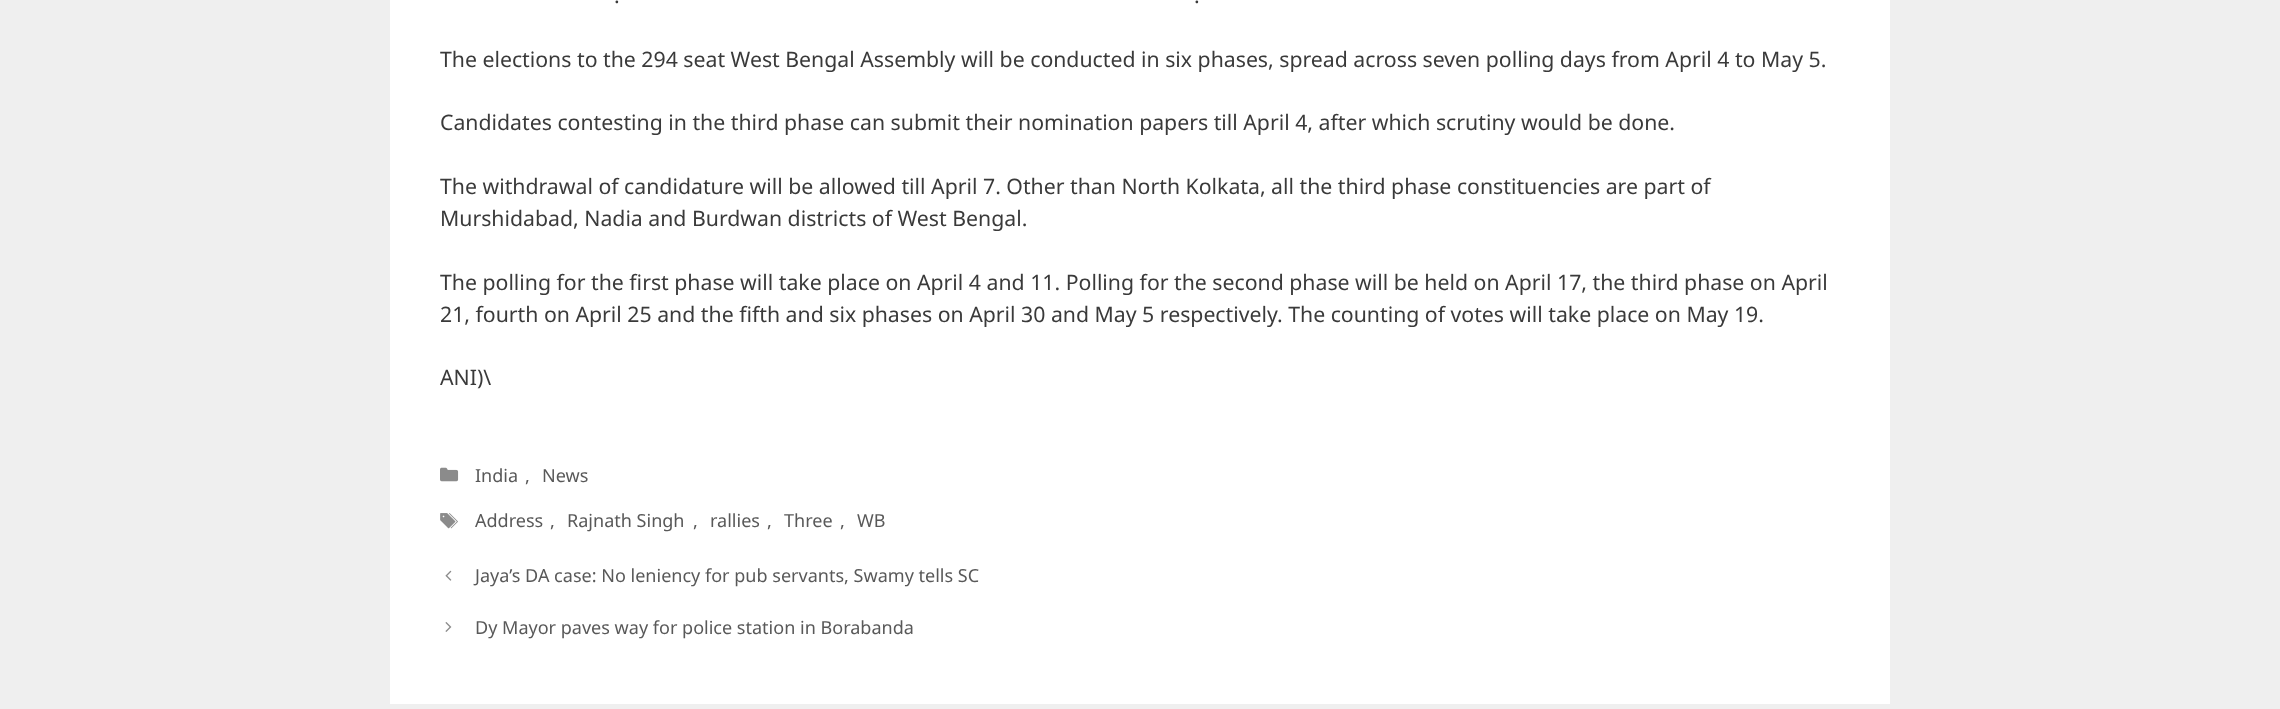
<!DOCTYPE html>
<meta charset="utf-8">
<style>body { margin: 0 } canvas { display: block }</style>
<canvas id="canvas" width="2280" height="709"></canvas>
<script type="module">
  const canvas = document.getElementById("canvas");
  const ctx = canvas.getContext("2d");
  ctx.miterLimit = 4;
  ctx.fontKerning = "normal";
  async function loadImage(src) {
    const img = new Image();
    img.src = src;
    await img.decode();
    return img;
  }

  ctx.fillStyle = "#efefef";
  ctx.fillRect(0, 0, 2280, 709);
  ctx.fillStyle = "#ffffff";
  ctx.fillRect(390, 0, 1500, 704);
  ctx.font = "21.25px Noto Sans";
  ctx.fillStyle = "#3a3a3a";
  ctx.fillText(".", 614, 3);
  ctx.fillText(".", 1194, 3);
  ctx.fillText("The elections to the 294 seat West Bengal Assembly will be conducted in six phases, spread across seven polling days from April 4 to May 5.", 440, 67);
  ctx.fillText("Candidates contesting in the third phase can submit their nomination papers till April 4, after which scrutiny would be done.", 440, 130);
  ctx.fillText("The withdrawal of candidature will be allowed till April 7. Other than North Kolkata, all the third phase constituencies are part of", 440, 194);
  ctx.fillText("Murshidabad, Nadia and Burdwan districts of West Bengal.", 440, 226);
  ctx.fillText("The polling for the first phase will take place on April 4 and 11. Polling for the second phase will be held on April 17, the third phase on April", 440, 290);
  ctx.fillText("21, fourth on April 25 and the fifth and six phases on April 30 and May 5 respectively. The counting of votes will take place on May 19.", 440, 322);
  ctx.fillText("ANI)\\", 440, 385);
  ctx.drawImage(await loadImage("img1.png"), 440, 467, 19, 15);
  ctx.font = "18.05px Noto Sans";
  ctx.fillStyle = "#595959";
  ctx.fillText("India", 475, 482);
  ctx.fillText(",", 525, 482);
  ctx.fillText("News", 542, 482);
  ctx.drawImage(await loadImage("img2.png"), 440, 513, 18, 16);
  ctx.fillText("Address", 475, 527);
  ctx.fillText(",", 550, 527);
  ctx.fillText("Rajnath Singh", 567, 527);
  ctx.fillText(",", 693, 527);
  ctx.fillText("rallies", 710, 527);
  ctx.fillText(",", 767, 527);
  ctx.fillText("Three", 784, 527);
  ctx.fillText(",", 840, 527);
  ctx.fillText("WB", 857, 527);
  ctx.drawImage(await loadImage("img3.png"), 445, 570, 7, 11);
  ctx.fillText("Jaya’s DA case: No leniency for pub servants, Swamy tells SC", 475, 582);
  ctx.drawImage(await loadImage("img4.png"), 445, 622, 7, 10);
  ctx.fillText("Dy Mayor paves way for police station in Borabanda", 475, 634);
</script>
